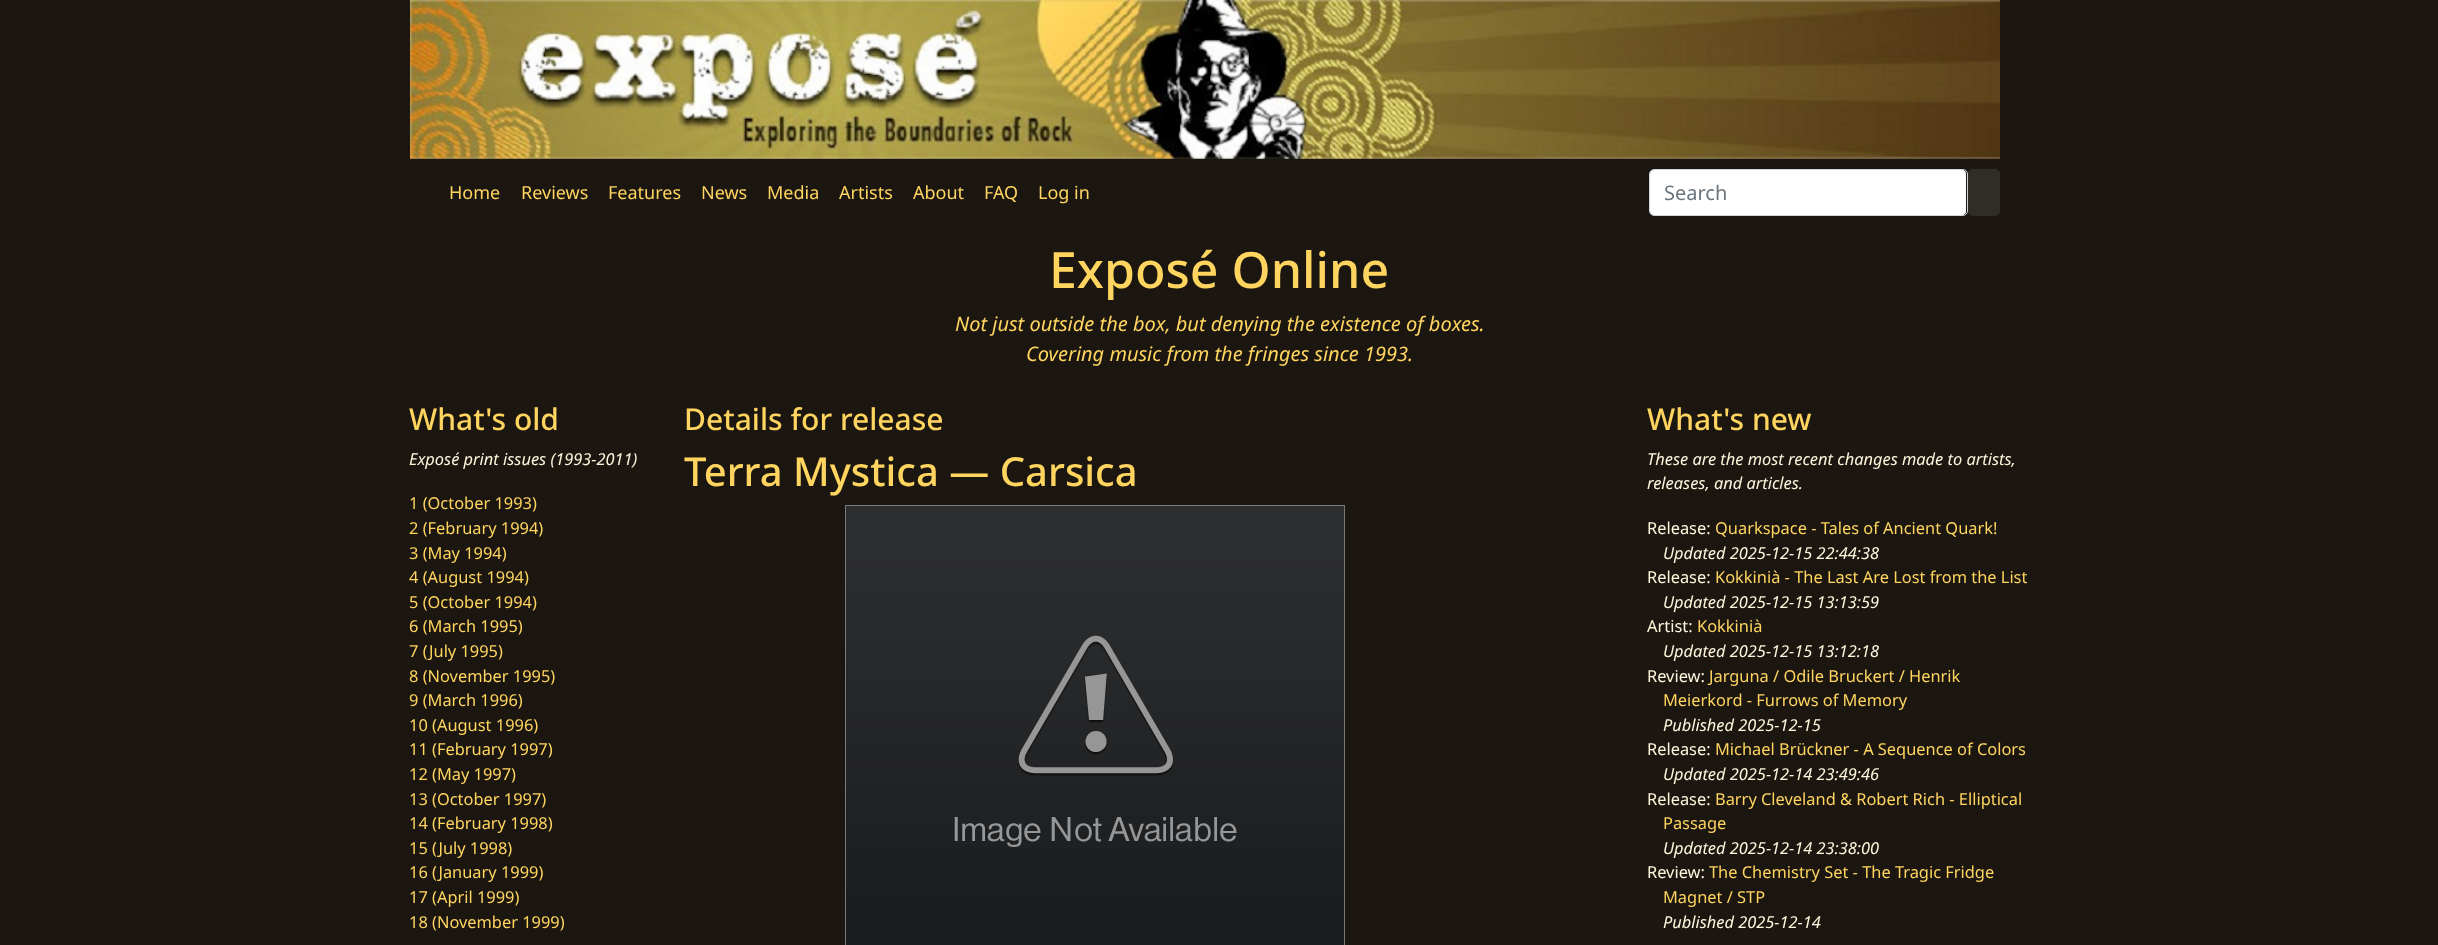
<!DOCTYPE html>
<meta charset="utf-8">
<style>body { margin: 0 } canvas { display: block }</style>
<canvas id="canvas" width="2438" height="945"></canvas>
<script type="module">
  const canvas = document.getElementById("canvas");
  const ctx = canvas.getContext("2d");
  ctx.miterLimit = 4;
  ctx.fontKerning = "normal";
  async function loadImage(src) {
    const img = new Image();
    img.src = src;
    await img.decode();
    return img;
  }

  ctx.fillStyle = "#1b1610";
  ctx.fillRect(0, 0, 2438, 945);
  ctx.drawImage(await loadImage("img1.png"), 410, 0, 1590, 159);
  ctx.font = "18px Noto Sans";
  ctx.fillStyle = "#ffd55f";
  ctx.fillText("Home", 449, 199);
  ctx.fillText("Reviews", 521, 199);
  ctx.fillText("Features", 608, 199);
  ctx.fillText("News", 701, 199);
  ctx.fillText("Media", 767, 199);
  ctx.fillText("Artists", 839, 199);
  ctx.fillText("About", 913, 199);
  ctx.fillText("FAQ", 984, 199);
  ctx.fillText("Log in", 1038, 199);
  ctx.fillStyle = "#ffffff";
  ctx.beginPath();
  ctx.roundRect(1650, 170, 316, 45, 4);
  ctx.fill();
  ctx.beginPath();
  ctx.roundRect(1649.5, 169.5, 318, 46, 4.5);
  ctx.strokeStyle = "#ced4da";
  ctx.stroke();
  ctx.font = "20px Noto Sans";
  ctx.fillStyle = "#6c757d";
  ctx.fillText("Search", 1664, 200);
  ctx.fillStyle = "#302c26";
  ctx.beginPath();
  ctx.roundRect(1968, 169, 32, 47, 5);
  ctx.fill();
  ctx.font = "500 50px Noto Sans";
  ctx.fillStyle = "#ffd55f";
  ctx.fillText("Exposé Online", 1049, 288);
  ctx.font = "italic 20px Noto Sans";
  ctx.fillText("Not just outside the box, but denying the existence of boxes.", 955, 331);
  ctx.fillText("Covering music from the fringes since 1993.", 1026, 361);
  ctx.font = "500 30px Noto Sans";
  ctx.fillText("What's old", 409, 430);
  ctx.font = "italic 16.4px Noto Sans";
  ctx.fillStyle = "#fff6dc";
  ctx.fillText("Exposé print issues (1993-2011)", 409, 465);
  ctx.font = "16.4px Noto Sans";
  ctx.fillStyle = "#ffd55f";
  ctx.fillText("1 (October 1993)", 409, 509);
  ctx.fillText("2 (February 1994)", 409, 534);
  ctx.fillText("3 (May 1994)", 409, 559);
  ctx.fillText("4 (August 1994)", 409, 583);
  ctx.fillText("5 (October 1994)", 409, 608);
  ctx.fillText("6 (March 1995)", 409, 632);
  ctx.fillText("7 (July 1995)", 409, 657);
  ctx.fillText("8 (November 1995)", 409, 682);
  ctx.fillText("9 (March 1996)", 409, 706);
  ctx.fillText("10 (August 1996)", 409, 731);
  ctx.fillText("11 (February 1997)", 409, 755);
  ctx.fillText("12 (May 1997)", 409, 780);
  ctx.fillText("13 (October 1997)", 409, 805);
  ctx.fillText("14 (February 1998)", 409, 829);
  ctx.fillText("15 (July 1998)", 409, 854);
  ctx.fillText("16 (January 1999)", 409, 878);
  ctx.fillText("17 (April 1999)", 409, 903);
  ctx.fillText("18 (November 1999)", 409, 928);
  ctx.font = "500 30px Noto Sans";
  ctx.fillText("Details for release", 684, 430);
  ctx.font = "500 40px Noto Sans";
  ctx.fillText("Terra Mystica — Carsica", 684, 486);
  ctx.drawImage(await loadImage("img2.png"), 845, 505, 500, 440);
  ctx.font = "500 30px Noto Sans";
  ctx.fillText("What's new", 1647, 430);
  ctx.font = "italic 16.4px Noto Sans";
  ctx.fillStyle = "#fff6dc";
  ctx.fillText("These are the most recent changes made to artists,", 1647, 465);
  ctx.fillText("releases, and articles.", 1647, 489);
  ctx.font = "16.4px Noto Sans";
  ctx.fillText("Release:", 1647, 534);
  ctx.fillStyle = "#ffd55f";
  ctx.fillText("Quarkspace - Tales of Ancient Quark!", 1715, 534);
  ctx.font = "italic 16.4px Noto Sans";
  ctx.fillStyle = "#fff6dc";
  ctx.fillText("Updated 2025-12-15 22:44:38", 1663, 559);
  ctx.font = "16.4px Noto Sans";
  ctx.fillText("Release:", 1647, 583);
  ctx.fillStyle = "#ffd55f";
  ctx.fillText("Kokkinià - The Last Are Lost from the List", 1715, 583);
  ctx.font = "italic 16.4px Noto Sans";
  ctx.fillStyle = "#fff6dc";
  ctx.fillText("Updated 2025-12-15 13:13:59", 1663, 608);
  ctx.font = "16.4px Noto Sans";
  ctx.fillText("Artist:", 1647, 632);
  ctx.fillStyle = "#ffd55f";
  ctx.fillText("Kokkinià", 1697, 632);
  ctx.font = "italic 16.4px Noto Sans";
  ctx.fillStyle = "#fff6dc";
  ctx.fillText("Updated 2025-12-15 13:12:18", 1663, 657);
  ctx.font = "16.4px Noto Sans";
  ctx.fillText("Review:", 1647, 682);
  ctx.fillStyle = "#ffd55f";
  ctx.fillText("Jarguna / Odile Bruckert / Henrik", 1709, 682);
  ctx.fillText("Meierkord - Furrows of Memory", 1663, 706);
  ctx.font = "italic 16.4px Noto Sans";
  ctx.fillStyle = "#fff6dc";
  ctx.fillText("Published 2025-12-15", 1663, 731);
  ctx.font = "16.4px Noto Sans";
  ctx.fillText("Release:", 1647, 755);
  ctx.fillStyle = "#ffd55f";
  ctx.fillText("Michael Brückner - A Sequence of Colors", 1715, 755);
  ctx.font = "italic 16.4px Noto Sans";
  ctx.fillStyle = "#fff6dc";
  ctx.fillText("Updated 2025-12-14 23:49:46", 1663, 780);
  ctx.font = "16.4px Noto Sans";
  ctx.fillText("Release:", 1647, 805);
  ctx.fillStyle = "#ffd55f";
  ctx.fillText("Barry Cleveland & Robert Rich - Elliptical", 1715, 805);
  ctx.fillText("Passage", 1663, 829);
  ctx.font = "italic 16.4px Noto Sans";
  ctx.fillStyle = "#fff6dc";
  ctx.fillText("Updated 2025-12-14 23:38:00", 1663, 854);
  ctx.font = "16.4px Noto Sans";
  ctx.fillText("Review:", 1647, 878);
  ctx.fillStyle = "#ffd55f";
  ctx.fillText("The Chemistry Set - The Tragic Fridge", 1709, 878);
  ctx.fillText("Magnet / STP", 1663, 903);
  ctx.font = "italic 16.4px Noto Sans";
  ctx.fillStyle = "#fff6dc";
  ctx.fillText("Published 2025-12-14", 1663, 928);
</script>
